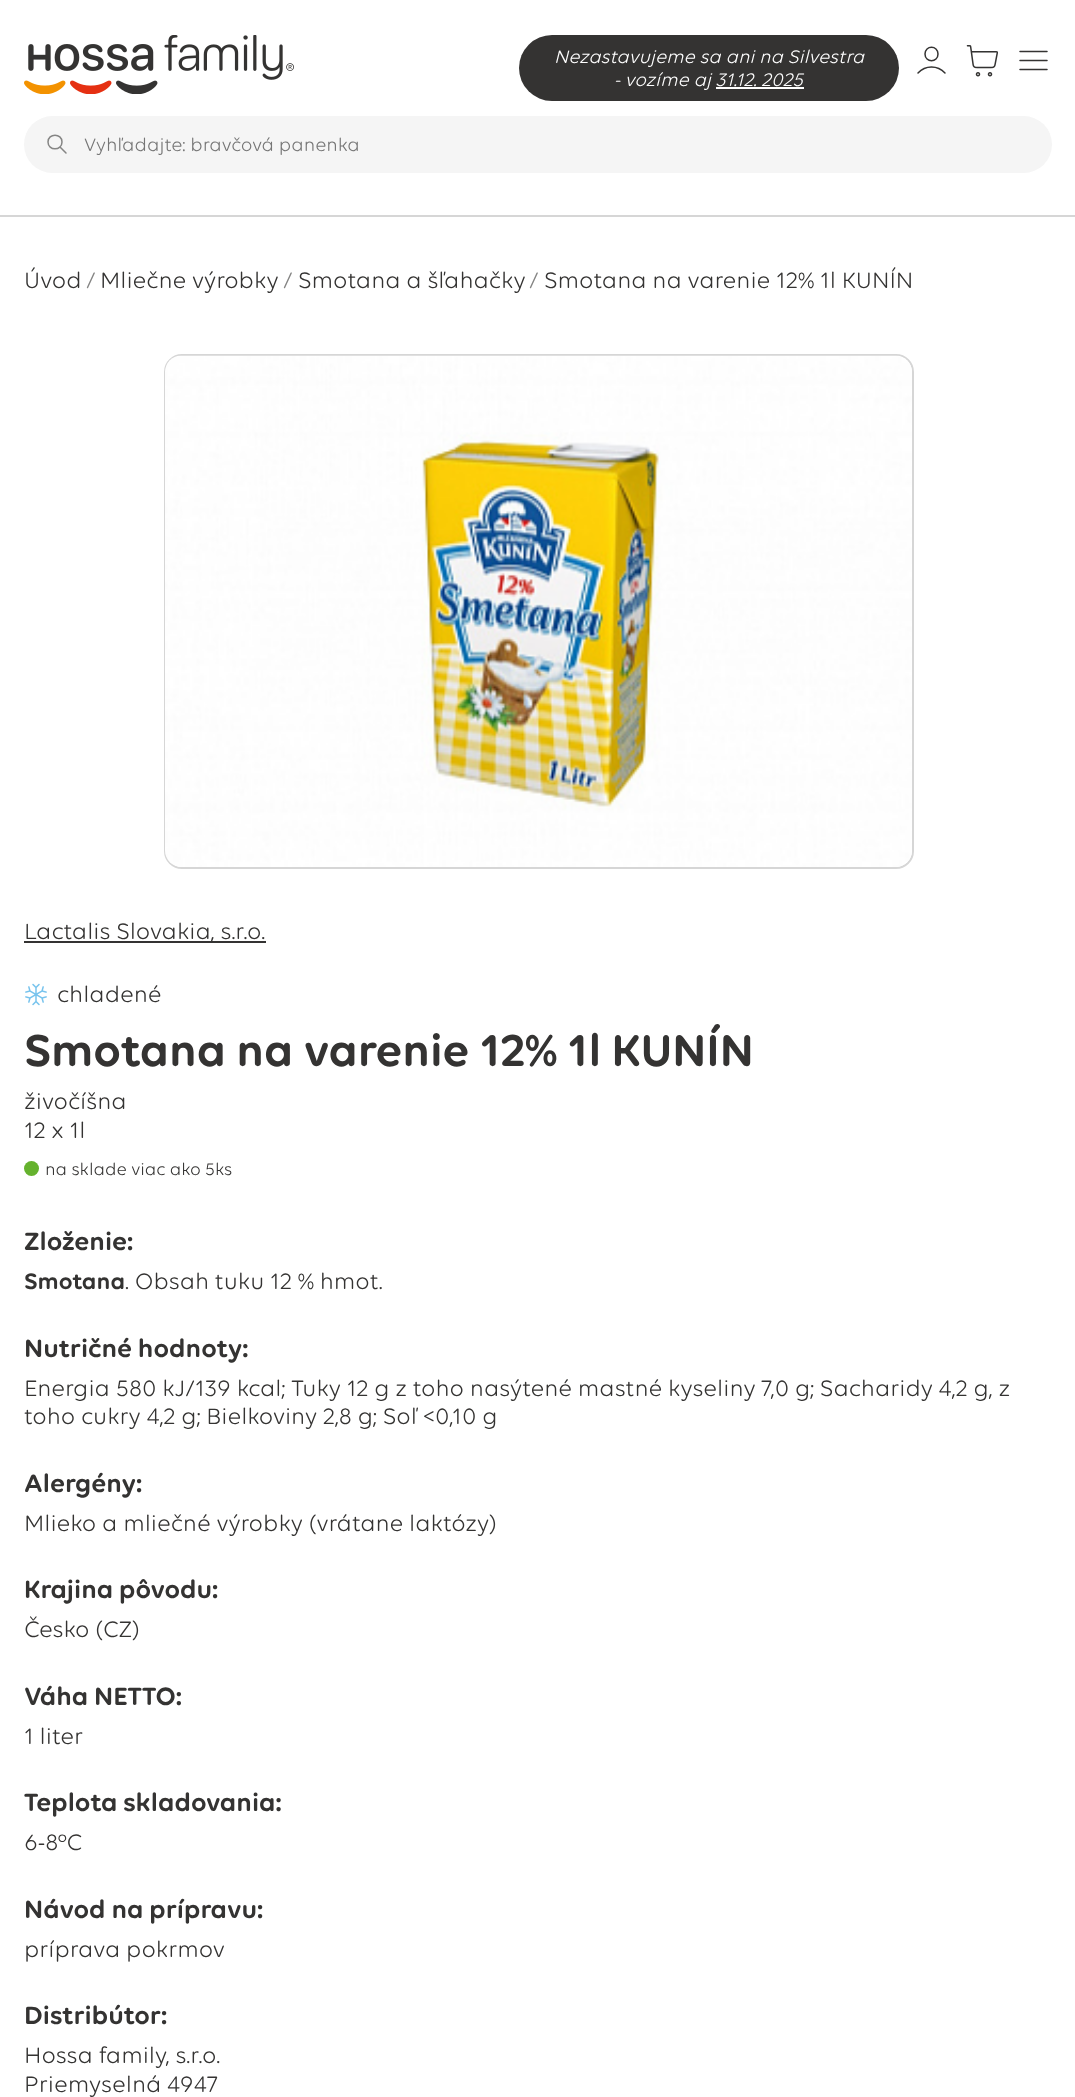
<!DOCTYPE html>
<meta charset="utf-8">
<style>body { margin: 0 } canvas { display: block }</style>
<canvas id="canvas" width="1075" height="2097"></canvas>
<script type="module">
  const canvas = document.getElementById("canvas");
  const ctx = canvas.getContext("2d");
  ctx.miterLimit = 4;
  ctx.fontKerning = "normal";
  async function loadImage(src) {
    const img = new Image();
    img.src = src;
    await img.decode();
    return img;
  }

  ctx.fillStyle = "#ffffff";
  ctx.fillRect(0, 0, 1075, 2097);
  ctx.fillStyle = "#d6d6d6";
  ctx.fillRect(0, 215, 1075, 2);
  ctx.drawImage(await loadImage("img1.png"), 24, 35, 270, 59);
  ctx.fillStyle = "#343332";
  ctx.beginPath();
  ctx.roundRect(519, 35, 380, 66, 33);
  ctx.fill();
  ctx.font = "italic 19.5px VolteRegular";
  ctx.fillStyle = "#ffffff";
  ctx.fillText("Nezastavujeme sa ani na Silvestra", 554, 63);
  ctx.fillText("- vozíme aj 31.12. 2025", 614, 86);
  ctx.fillRect(716, 87, 88, 2);
  ctx.beginPath();
  ctx.moveTo(918, 73);
  ctx.bezierCurveTo(925.5, 65, 937.5, 65, 945, 73);
  ctx.moveTo(938, 54);
  ctx.bezierCurveTo(938, 63, 925, 63, 925, 54);
  ctx.bezierCurveTo(925, 45, 938, 45, 938, 54);
  ctx.closePath();
  ctx.strokeStyle = "#343332";
  ctx.lineWidth = 1.5;
  ctx.lineCap = "round";
  ctx.lineJoin = "round";
  ctx.stroke();
  ctx.drawImage(await loadImage("img2.png"), 966, 45, 32, 32);
  ctx.beginPath();
  ctx.moveTo(1020, 60.5);
  ctx.lineTo(1047, 60.5);
  ctx.moveTo(1020, 51.5);
  ctx.lineTo(1047, 51.5);
  ctx.moveTo(1020, 69.5);
  ctx.lineTo(1047, 69.5);
  ctx.stroke();
  ctx.fillStyle = "#f5f5f5";
  ctx.beginPath();
  ctx.roundRect(24, 116, 1028, 57, 28.5);
  ctx.fill();
  ctx.beginPath();
  ctx.moveTo(66, 153);
  ctx.lineTo(60, 147);
  ctx.moveTo(62, 142);
  ctx.bezierCurveTo(62, 151, 48, 151, 48, 142);
  ctx.bezierCurveTo(48, 133, 62, 133, 62, 142);
  ctx.closePath();
  ctx.strokeStyle = "#858584";
  ctx.stroke();
  ctx.font = "19.5px VolteRegular";
  ctx.fillStyle = "#757575";
  ctx.fillText("Vyhľadajte: bravčová panenka", 84, 151);
  ctx.font = "24px VolteRegular";
  ctx.fillStyle = "#343332";
  ctx.fillText("Úvod", 24, 288);
  ctx.fillStyle = "#858584";
  ctx.fillText("/", 86, 288);
  ctx.fillStyle = "#343332";
  ctx.fillText("Mliečne výrobky", 100, 288);
  ctx.fillStyle = "#858584";
  ctx.fillText("/", 283, 288);
  ctx.fillStyle = "#343332";
  ctx.fillText("Smotana a šľahačky", 298, 288);
  ctx.fillStyle = "#858584";
  ctx.fillText("/", 529, 288);
  ctx.fillStyle = "#343332";
  ctx.fillText("Smotana na varenie 12% 1l KUNÍN", 544, 288);
  ctx.beginPath();
  ctx.roundRect(165, 355, 748, 513, 17);
  ctx.strokeStyle = "#d6d6d6";
  ctx.lineWidth = 2;
  ctx.lineJoin = "miter";
  ctx.stroke();
  ctx.drawImage(await loadImage("img3.png"), 165, 355, 747, 512);
  ctx.fillRect(24, 941, 242, 2);
  ctx.fillText("Lactalis Slovakia, s.r.o.", 24, 939);
  ctx.drawImage(await loadImage("img4.png"), 25, 983, 22, 23);
  ctx.fillText("chladené", 57, 1002);
  ctx.font = "600 48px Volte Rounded";
  ctx.fillText("Smotana na varenie 12% 1l KUNÍN", 24, 1066);
  ctx.font = "24px VolteRegular";
  ctx.fillText("živočíšna", 24, 1109);
  ctx.fillText("12 x 1l", 24, 1138);
  ctx.fillStyle = "#65b22e";
  ctx.beginPath();
  ctx.arc(31.5, 1168.5, 7.5, 0, Math.PI * 2);
  ctx.fill();
  ctx.font = "18px VolteRegular";
  ctx.fillStyle = "#343332";
  ctx.fillText("na sklade viac ako 5ks", 45, 1175);
  ctx.font = "600 27px Volte Rounded";
  ctx.fillText("Zloženie:", 24, 1250);
  ctx.font = "600 24px Volte Rounded";
  ctx.fillText("Smotana", 24, 1289);
  ctx.font = "24px VolteRegular";
  ctx.fillText(". Obsah tuku 12 % hmot.", 125, 1289);
  ctx.font = "600 27px Volte Rounded";
  ctx.fillText("Nutričné hodnoty:", 24, 1357);
  ctx.font = "24px VolteRegular";
  ctx.fillText("Energia 580 kJ/139 kcal; Tuky 12 g z toho nasýtené mastné kyseliny 7,0 g; Sacharidy 4,2 g, z", 24, 1396);
  ctx.fillText("toho cukry 4,2 g; Bielkoviny 2,8 g; Soľ <0,10 g", 24, 1424);
  ctx.font = "600 27px Volte Rounded";
  ctx.fillText("Alergény:", 24, 1492);
  ctx.font = "24px VolteRegular";
  ctx.fillText("Mlieko a mliečné výrobky (vrátane laktózy)", 24, 1531);
  ctx.font = "600 27px Volte Rounded";
  ctx.fillText("Krajina pôvodu:", 24, 1598);
  ctx.font = "24px VolteRegular";
  ctx.fillText("Česko (CZ)", 24, 1637);
  ctx.font = "600 27px Volte Rounded";
  ctx.fillText("Váha NETTO:", 24, 1705);
  ctx.font = "24px VolteRegular";
  ctx.fillText("1 liter", 24, 1744);
  ctx.font = "600 27px Volte Rounded";
  ctx.fillText("Teplota skladovania:", 24, 1811);
  ctx.font = "24px VolteRegular";
  ctx.fillText("6-8°C", 24, 1850);
  ctx.font = "600 27px Volte Rounded";
  ctx.fillText("Návod na prípravu:", 24, 1918);
  ctx.font = "24px VolteRegular";
  ctx.fillText("príprava pokrmov", 24, 1957);
  ctx.font = "600 27px Volte Rounded";
  ctx.fillText("Distribútor:", 24, 2024);
  ctx.font = "24px VolteRegular";
  ctx.fillText("Hossa family, s.r.o.", 24, 2063);
  ctx.fillText("Priemyselná 4947", 24, 2092);
</script>
